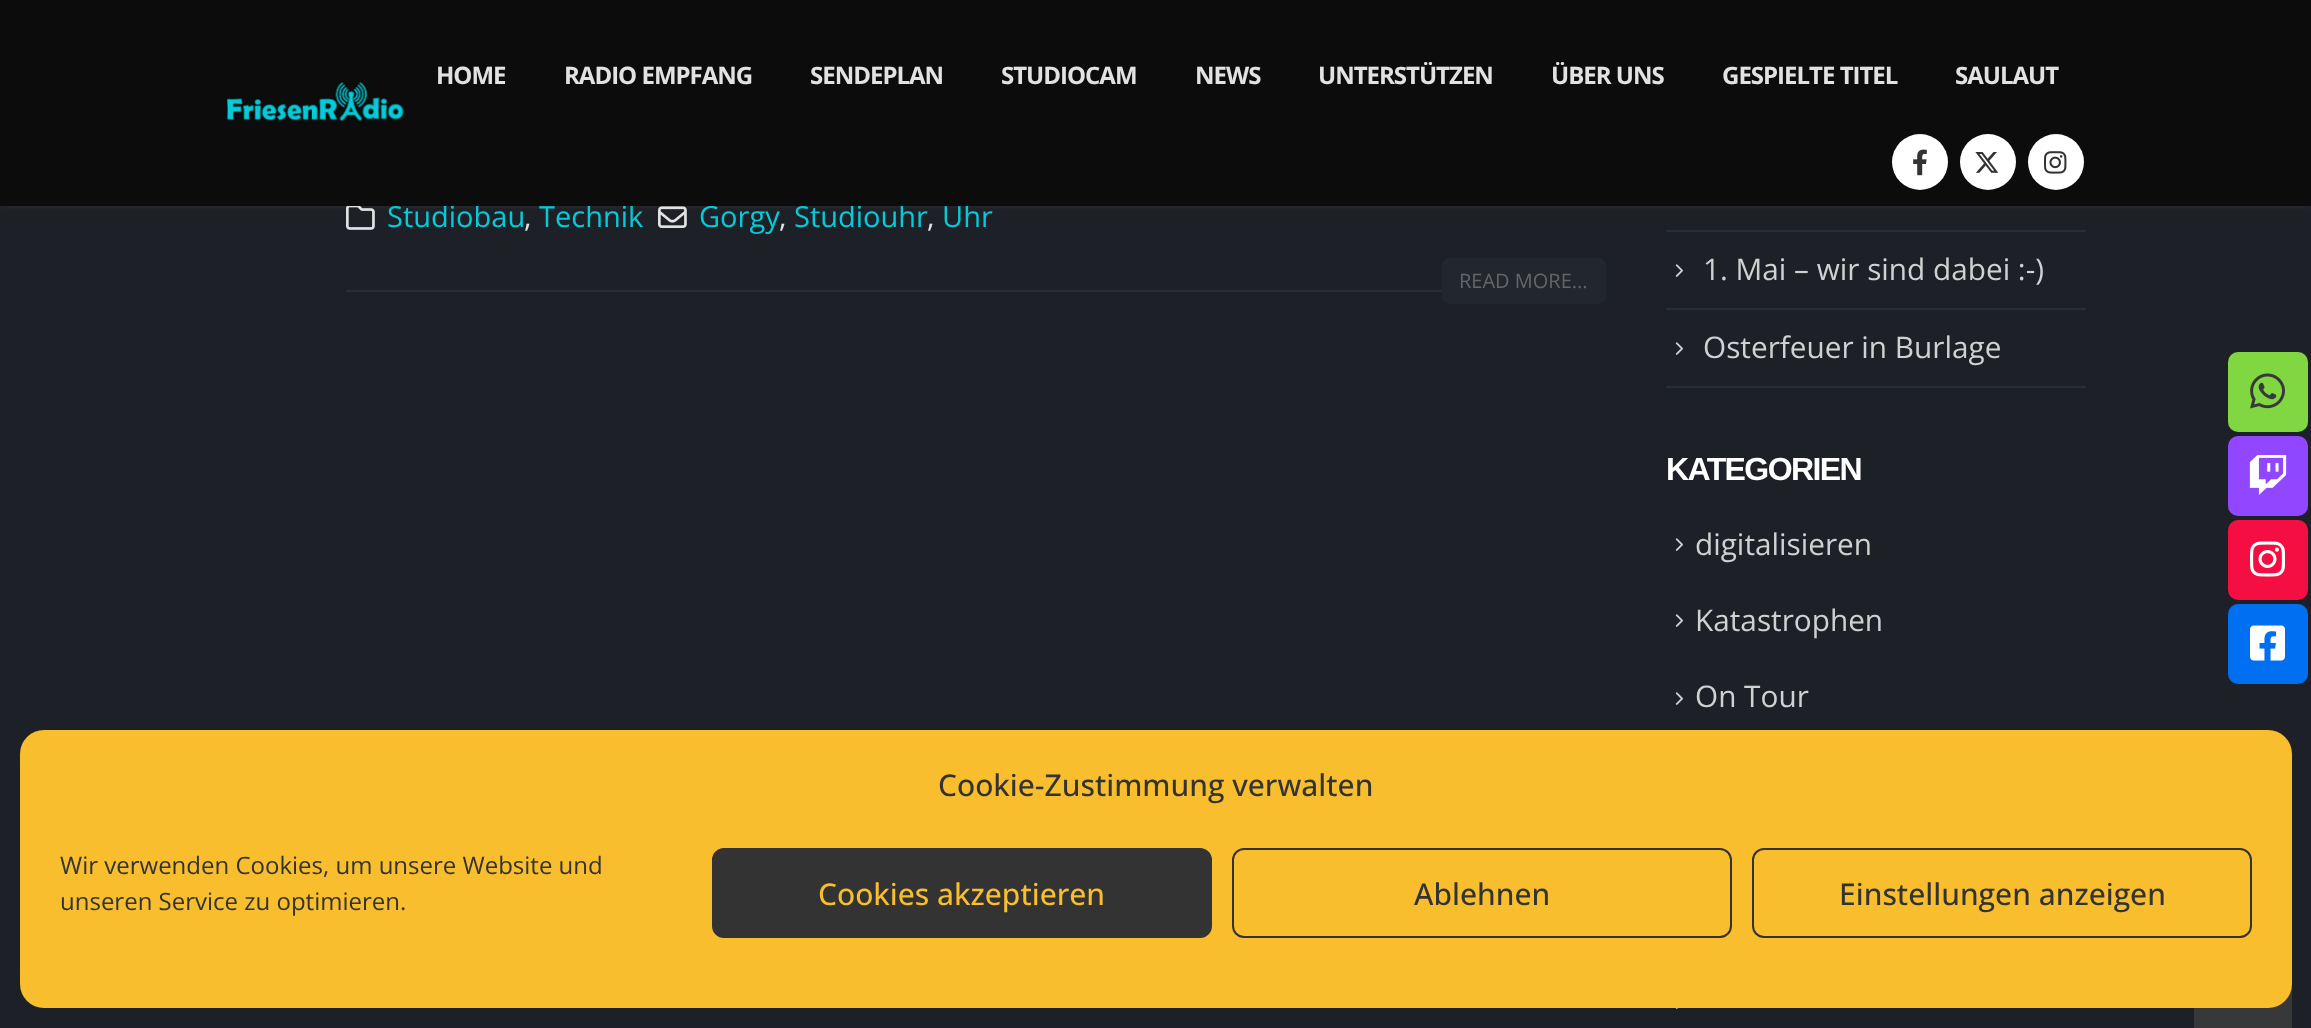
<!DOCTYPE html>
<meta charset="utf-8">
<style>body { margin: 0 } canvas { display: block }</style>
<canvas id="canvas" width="2311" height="1028"></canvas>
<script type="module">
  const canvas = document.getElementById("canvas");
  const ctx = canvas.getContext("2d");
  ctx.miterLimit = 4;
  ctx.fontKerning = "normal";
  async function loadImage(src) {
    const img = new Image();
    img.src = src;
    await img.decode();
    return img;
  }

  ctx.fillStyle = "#1d2127";
  ctx.fillRect(0, 0, 2311, 1028);
  ctx.drawImage(await loadImage("img5.png"), 346, 206, 29, 24);
  ctx.drawImage(await loadImage("img6.png"), 658, 206, 29, 22);
  ctx.fillStyle = "rgba(255, 255, 255, 0.06)";
  ctx.filter = "blur(3px)";
  ctx.beginPath();
  ctx.rect(0, 0, 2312, 206);
  ctx.fill();
  ctx.filter = "none";
  ctx.font = "29px Open Sans";
  ctx.fillStyle = "#05cbd8";
  ctx.fillText("Studiobau", 387, 227);
  ctx.fillText("Technik", 539, 227);
  ctx.fillText("Studiouhr", 794, 227);
  ctx.fillText("Uhr", 942, 227);
  ctx.fillStyle = "#0c0c0c";
  ctx.fillRect(0, 0, 2311, 206);
  ctx.letterSpacing = "-1px";
  ctx.font = "bold 24px Open Sans";
  ctx.fillStyle = "#e2e2e2";
  ctx.fillText("HOME", 436, 84);
  ctx.fillText("RADIO EMPFANG", 564, 84);
  ctx.fillText("SENDEPLAN", 810, 84);
  ctx.fillText("STUDIOCAM", 1001, 84);
  ctx.fillText("NEWS", 1195, 84);
  ctx.fillText("UNTERSTÜTZEN", 1318, 84);
  ctx.fillText("ÜBER UNS", 1551, 84);
  ctx.fillText("GESPIELTE TITEL", 1722, 84);
  ctx.fillText("SAULAUT", 1955, 84);
  ctx.fillStyle = "#ffffff";
  ctx.beginPath();
  ctx.arc(1920, 162, 28, 0, Math.PI * 2);
  ctx.fill();
  ctx.drawImage(await loadImage("img1.png"), 1913, 149, 14, 27);
  ctx.beginPath();
  ctx.arc(1988, 162, 28, 0, Math.PI * 2);
  ctx.fill();
  ctx.drawImage(await loadImage("img2.png"), 1975, 152, 24, 21);
  ctx.beginPath();
  ctx.arc(2056, 162, 28, 0, Math.PI * 2);
  ctx.fill();
  ctx.drawImage(await loadImage("img3.png"), 2044, 151, 23, 23);
  ctx.drawImage(await loadImage("img4.png"), 227, 81, 177, 41);
  ctx.fillStyle = "#2b2e34";
  ctx.fillRect(346, 290, 1096, 2);
  ctx.letterSpacing = "0px";
  ctx.font = "29px Open Sans";
  ctx.fillStyle = "#e2e2e2";
  ctx.fillText(",", 524, 227);
  ctx.fillStyle = "#05cbd8";
  ctx.fillText("Gorgy", 699, 227);
  ctx.fillStyle = "#e2e2e2";
  ctx.fillText(",", 779, 227);
  ctx.fillText(",", 927, 227);
  ctx.fillStyle = "#22262d";
  ctx.beginPath();
  ctx.roundRect(1442, 258, 164, 46, 8);
  ctx.fill();
  ctx.font = "20px Open Sans";
  ctx.fillStyle = "#666666";
  ctx.fillText("READ MORE...", 1459, 288);
  ctx.fillStyle = "#282e36";
  ctx.fillRect(1666, 386, 420, 2);
  ctx.fillRect(1666, 230, 420, 2);
  ctx.drawImage(await loadImage("img7.png"), 1675, 264, 8, 13);
  ctx.font = "29.75px Open Sans";
  ctx.fillStyle = "#d1d1d1";
  ctx.fillText("1. Mai – wir sind dabei :-)", 1703, 280);
  ctx.fillStyle = "#282e36";
  ctx.fillRect(1666, 308, 420, 2);
  ctx.drawImage(await loadImage("img7.png"), 1675, 342, 8, 13);
  ctx.fillStyle = "#d1d1d1";
  ctx.fillText("Osterfeuer in Burlage", 1703, 358);
  ctx.letterSpacing = "-1.6px";
  ctx.font = "bold 32px Liberation Sans";
  ctx.fillStyle = "#ffffff";
  ctx.fillText("KATEGORIEN", 1666, 480);
  ctx.drawImage(await loadImage("img7.png"), 1675, 538, 8, 13);
  ctx.letterSpacing = "0px";
  ctx.font = "29.75px Open Sans";
  ctx.fillStyle = "#d1d1d1";
  ctx.fillText("digitalisieren", 1695, 555);
  ctx.drawImage(await loadImage("img7.png"), 1675, 614, 8, 13);
  ctx.fillText("Katastrophen", 1695, 631);
  ctx.drawImage(await loadImage("img7.png"), 1675, 692, 8, 13);
  ctx.fillText("On Tour", 1695, 707);
  ctx.drawImage(await loadImage("img8.png"), 1675, 1008, 3, 1);
  ctx.fillStyle = "#81d742";
  ctx.beginPath();
  ctx.roundRect(2228, 352, 80, 80, 10);
  ctx.fill();
  ctx.drawImage(await loadImage("img9.png"), 2250, 373, 35, 36);
  ctx.fillStyle = "#9146ff";
  ctx.beginPath();
  ctx.roundRect(2228, 436, 80, 80, 10);
  ctx.fill();
  ctx.drawImage(await loadImage("img10.png"), 2249, 455, 38, 40);
  ctx.fillStyle = "#f50e42";
  ctx.beginPath();
  ctx.roundRect(2228, 520, 80, 80, 10);
  ctx.fill();
  ctx.drawImage(await loadImage("img11.png"), 2250, 541, 35, 36);
  ctx.fillStyle = "#006ff1";
  ctx.beginPath();
  ctx.roundRect(2228, 604, 80, 80, 10);
  ctx.fill();
  ctx.drawImage(await loadImage("img12.png"), 2250, 625, 35, 36);
  ctx.fillStyle = "#37383a";
  ctx.fillRect(2194, 984, 98, 44);
  ctx.fillStyle = "#f8be2e";
  ctx.beginPath();
  ctx.roundRect(20, 730, 2272, 278, 24);
  ctx.fill();
  ctx.font = "500 30px Open Sans";
  ctx.fillStyle = "#333333";
  ctx.fillText("Cookie-Zustimmung verwalten", 938, 796);
  ctx.font = "24px Open Sans";
  ctx.fillText("Wir verwenden Cookies, um unsere Website und", 60, 874);
  ctx.fillText("unseren Service zu optimieren.", 60, 910);
  ctx.beginPath();
  ctx.roundRect(713, 849, 498, 88, 11);
  ctx.fill();
  ctx.strokeStyle = "#333333";
  ctx.lineWidth = 2;
  ctx.stroke();
  ctx.font = "500 30px Open Sans";
  ctx.fillStyle = "#f8be2e";
  ctx.fillText("Cookies akzeptieren", 818, 905);
  ctx.beginPath();
  ctx.roundRect(1233, 849, 498, 88, 11);
  ctx.stroke();
  ctx.fillStyle = "#333333";
  ctx.fillText("Ablehnen", 1414, 905);
  ctx.beginPath();
  ctx.roundRect(1753, 849, 498, 88, 11);
  ctx.stroke();
  ctx.fillText("Einstellungen anzeigen", 1839, 905);
</script>
